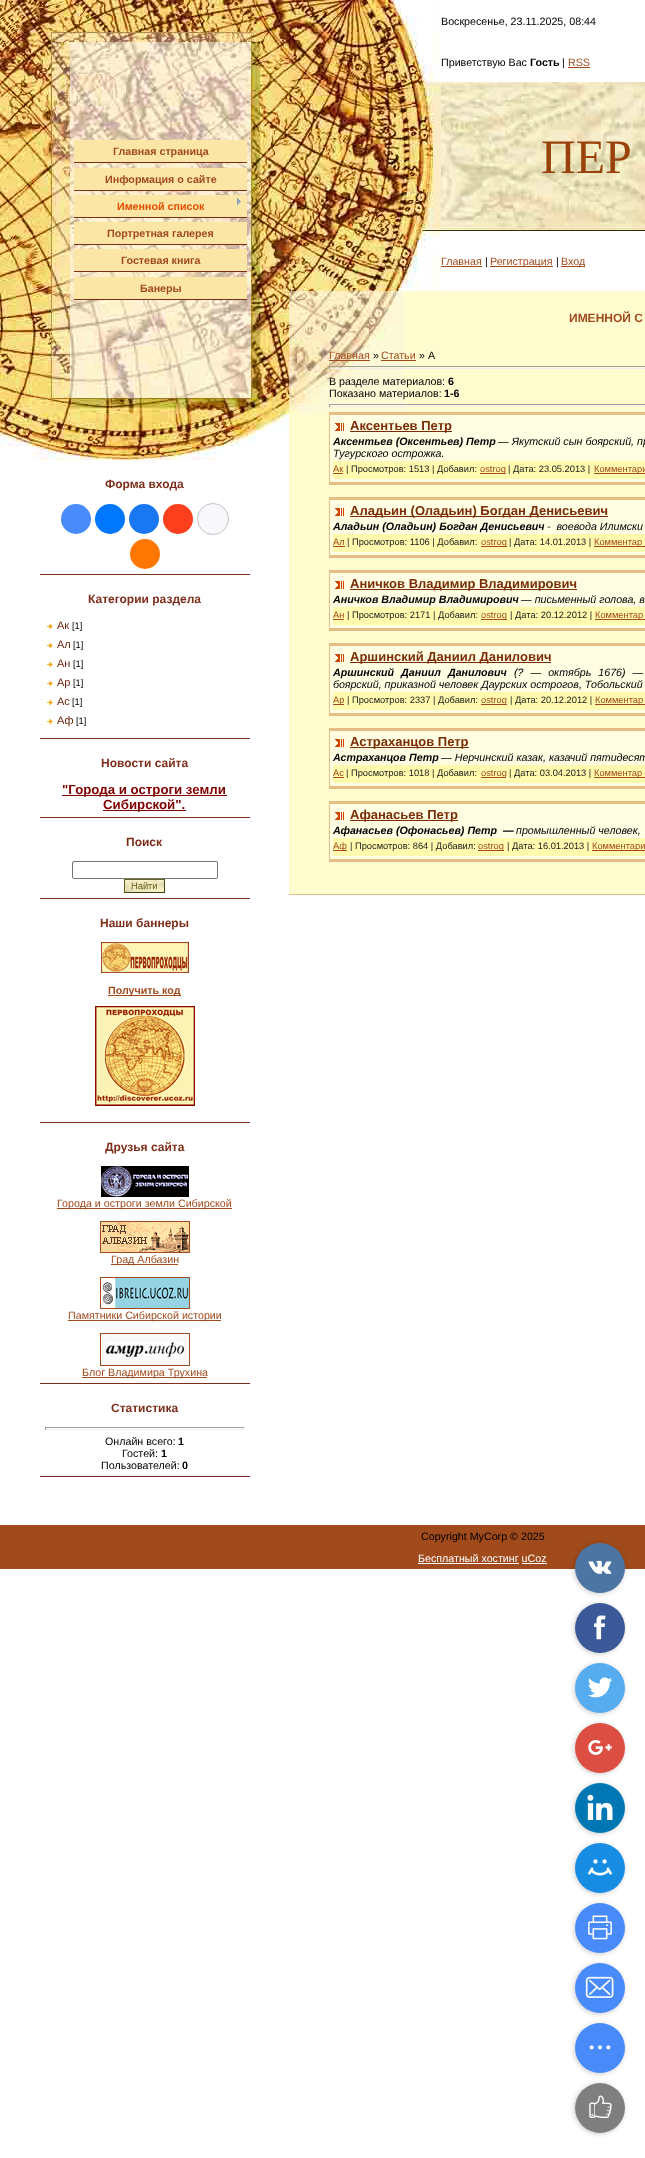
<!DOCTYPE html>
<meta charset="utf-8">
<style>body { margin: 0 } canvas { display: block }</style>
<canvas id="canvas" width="645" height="2158"></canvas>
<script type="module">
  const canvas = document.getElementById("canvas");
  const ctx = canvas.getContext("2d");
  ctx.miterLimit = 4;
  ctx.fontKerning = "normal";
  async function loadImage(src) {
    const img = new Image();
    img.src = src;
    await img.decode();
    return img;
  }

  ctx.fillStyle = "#ffffff";
  ctx.fillRect(0, 0, 645, 2158);
  ctx.drawImage(await loadImage("img1.png"), 0, 0, 289, 42);
  ctx.drawImage(await loadImage("img2.png"), 0, 42, 70, 356);
  ctx.drawImage(await loadImage("img3.png"), 70, 42, 181, 356);
  ctx.fillStyle = "#fce6a6";
  ctx.fillRect(74, 140, 173, 22);
  ctx.fillStyle = "#7d2d1a";
  ctx.fillRect(74, 162, 173, 1);
  ctx.font = "bold 10.7px Liberation Sans";
  ctx.fillStyle = "#a14a1c";
  ctx.fillText("Главная страница", 113, 155);
  ctx.fillStyle = "#fce6a6";
  ctx.fillRect(74, 168, 173, 22);
  ctx.fillStyle = "#7d2d1a";
  ctx.fillRect(74, 190, 173, 1);
  ctx.fillStyle = "#a14a1c";
  ctx.fillText("Информация о сайте", 105, 183);
  ctx.fillStyle = "#fce6a6";
  ctx.fillRect(74, 195, 173, 22);
  ctx.fillStyle = "#7d2d1a";
  ctx.fillRect(74, 217, 173, 1);
  ctx.fillStyle = "#e34e00";
  ctx.fillText("Именной список", 117, 210);
  ctx.drawImage(await loadImage("img4.png"), 237, 198, 4, 7);
  ctx.fillStyle = "#fce6a6";
  ctx.fillRect(74, 222, 173, 22);
  ctx.fillStyle = "#7d2d1a";
  ctx.fillRect(74, 244, 173, 1);
  ctx.fillStyle = "#a14a1c";
  ctx.fillText("Портретная галерея", 107, 237);
  ctx.fillStyle = "#fce6a6";
  ctx.fillRect(74, 249, 173, 22);
  ctx.fillStyle = "#7d2d1a";
  ctx.fillRect(74, 271, 173, 1);
  ctx.fillStyle = "#a14a1c";
  ctx.fillText("Гостевая книга", 121, 264);
  ctx.fillStyle = "#fce6a6";
  ctx.fillRect(74, 277, 173, 22);
  ctx.fillStyle = "#7d2d1a";
  ctx.fillRect(74, 299, 173, 1);
  ctx.fillStyle = "#a14a1c";
  ctx.fillText("Банеры", 140, 292);
  ctx.drawImage(await loadImage("img5.png"), 251, 42, 38, 356);
  ctx.drawImage(await loadImage("img6.png"), 0, 398, 289, 62);
  ctx.fillStyle = "#7d2d1a";
  ctx.fillRect(40, 574, 210, 1);
  ctx.font = "bold 12px Liberation Sans";
  ctx.fillText("Форма входа", 105, 488);
  ctx.fillStyle = "#498bfa";
  ctx.beginPath();
  ctx.arc(76, 519, 15, 0, Math.PI * 2);
  ctx.fill();
  ctx.fillStyle = "#0077ff";
  ctx.beginPath();
  ctx.arc(110, 519, 15, 0, Math.PI * 2);
  ctx.fill();
  ctx.fillStyle = "#1877f2";
  ctx.beginPath();
  ctx.arc(144, 519, 15, 0, Math.PI * 2);
  ctx.fill();
  ctx.fillStyle = "#fc3f1d";
  ctx.beginPath();
  ctx.arc(178, 519, 15, 0, Math.PI * 2);
  ctx.fill();
  ctx.fillStyle = "#f8f8fc";
  ctx.beginPath();
  ctx.arc(213, 519, 15.5, 0, Math.PI * 2);
  ctx.fill();
  ctx.strokeStyle = "#c4c4c4";
  ctx.stroke();
  ctx.fillStyle = "#ff7700";
  ctx.beginPath();
  ctx.arc(145, 554, 15, 0, Math.PI * 2);
  ctx.fill();
  ctx.fillStyle = "#7d2d1a";
  ctx.fillRect(40, 738, 210, 1);
  ctx.fillText("Категории раздела", 88, 603);
  ctx.drawImage(await loadImage("img7.png"), 47, 624, 6, 5);
  ctx.font = "11px Liberation Sans";
  ctx.fillStyle = "#6b1d05";
  ctx.fillText("Ак", 57, 629);
  ctx.font = "9.3px Liberation Sans";
  ctx.fillStyle = "#000000";
  ctx.fillText("[1]", 72, 629);
  ctx.drawImage(await loadImage("img7.png"), 47, 643, 6, 5);
  ctx.font = "11px Liberation Sans";
  ctx.fillStyle = "#6b1d05";
  ctx.fillText("Ал", 57, 648);
  ctx.font = "9.3px Liberation Sans";
  ctx.fillStyle = "#000000";
  ctx.fillText("[1]", 73, 648);
  ctx.drawImage(await loadImage("img7.png"), 47, 662, 6, 5);
  ctx.font = "11px Liberation Sans";
  ctx.fillStyle = "#6b1d05";
  ctx.fillText("Ан", 57, 667);
  ctx.font = "9.3px Liberation Sans";
  ctx.fillStyle = "#000000";
  ctx.fillText("[1]", 73, 667);
  ctx.drawImage(await loadImage("img7.png"), 47, 681, 6, 5);
  ctx.font = "11px Liberation Sans";
  ctx.fillStyle = "#6b1d05";
  ctx.fillText("Ар", 57, 686);
  ctx.font = "9.3px Liberation Sans";
  ctx.fillStyle = "#000000";
  ctx.fillText("[1]", 73, 686);
  ctx.drawImage(await loadImage("img7.png"), 47, 700, 6, 5);
  ctx.font = "11px Liberation Sans";
  ctx.fillStyle = "#6b1d05";
  ctx.fillText("Ас", 57, 705);
  ctx.font = "9.3px Liberation Sans";
  ctx.fillStyle = "#000000";
  ctx.fillText("[1]", 72, 705);
  ctx.drawImage(await loadImage("img7.png"), 47, 719, 6, 5);
  ctx.font = "11px Liberation Sans";
  ctx.fillStyle = "#6b1d05";
  ctx.fillText("Аф", 57, 724);
  ctx.font = "9.3px Liberation Sans";
  ctx.fillStyle = "#000000";
  ctx.fillText("[1]", 76, 724);
  ctx.fillStyle = "#7d2d1a";
  ctx.fillRect(40, 817, 210, 1);
  ctx.font = "bold 12px Liberation Sans";
  ctx.fillText("Новости сайта", 101, 767);
  ctx.fillStyle = "#800000";
  ctx.fillRect(62, 795, 165, 1);
  ctx.font = "bold 13.25px Liberation Sans";
  ctx.fillText("\"Города и остроги земли", 62, 794);
  ctx.fillRect(103, 810, 83, 1);
  ctx.fillText("Сибирской\".", 103, 809);
  ctx.fillStyle = "#7d2d1a";
  ctx.fillRect(40, 898, 210, 1);
  ctx.font = "bold 12px Liberation Sans";
  ctx.fillText("Поиск", 126, 846);
  ctx.beginPath();
  ctx.roundRect(72.5, 861.5, 145, 17, 1.5);
  ctx.strokeStyle = "#767676";
  ctx.stroke();
  ctx.drawImage(await loadImage("img8.png"), 125, 880, 39, 12);
  ctx.fillStyle = "#656219";
  ctx.fillRect(124, 879, 41, 1);
  ctx.fillStyle = "#434111";
  ctx.fillRect(164, 879, 1, 14);
  ctx.fillRect(124, 892, 41, 1);
  ctx.fillStyle = "#656219";
  ctx.fillRect(124, 879, 1, 14);
  ctx.font = "9.3px Liberation Sans";
  ctx.fillText("Найти", 131, 889);
  ctx.fillStyle = "#7d2d1a";
  ctx.fillRect(40, 1122, 210, 1);
  ctx.font = "bold 12px Liberation Sans";
  ctx.fillText("Наши баннеры", 100, 927);
  ctx.drawImage(await loadImage("img9.png"), 101, 942, 88, 31);
  ctx.fillStyle = "#a14a1c";
  ctx.fillRect(108, 995, 73, 1);
  ctx.font = "bold 10.7px Liberation Sans";
  ctx.fillText("Получить код", 108, 994);
  ctx.drawImage(await loadImage("img10.png"), 95, 1006, 100, 100);
  ctx.fillStyle = "#7d2d1a";
  ctx.fillRect(40, 1383, 210, 1);
  ctx.font = "bold 12px Liberation Sans";
  ctx.fillText("Друзья сайта", 105, 1151);
  ctx.drawImage(await loadImage("img11.png"), 101, 1166, 88, 31);
  ctx.fillStyle = "#a14a1c";
  ctx.fillRect(57, 1208, 175, 1);
  ctx.font = "10.7px Liberation Sans";
  ctx.fillText("Города и остроги земли Сибирской", 57, 1207);
  ctx.strokeStyle = "#a14a1c";
  ctx.strokeRect(100.5, 1221.5, 89, 31);
  ctx.drawImage(await loadImage("img12.png"), 101, 1222, 88, 30);
  ctx.fillRect(111, 1264, 67, 1);
  ctx.fillText("Град Албазин", 111, 1263);
  ctx.strokeRect(100.5, 1277.5, 89, 31);
  ctx.drawImage(await loadImage("img13.png"), 102, 1278, 87, 30);
  ctx.fillRect(68, 1320, 153, 1);
  ctx.fillText("Памятники Сибирской истории", 68, 1319);
  ctx.strokeRect(100.5, 1333.5, 89, 32);
  ctx.drawImage(await loadImage("img14.png"), 101, 1334, 88, 31);
  ctx.fillRect(82, 1377, 125, 1);
  ctx.fillText("Блог Владимира Трухина", 82, 1376);
  ctx.fillStyle = "#7d2d1a";
  ctx.fillRect(40, 1476, 210, 1);
  ctx.font = "bold 12px Liberation Sans";
  ctx.fillText("Статистика", 111, 1412);
  ctx.fillStyle = "#9f9f9f";
  ctx.fillRect(45, 1427, 200, 1);
  ctx.fillStyle = "#eeeeee";
  ctx.fillRect(244, 1427, 1, 3);
  ctx.fillRect(45, 1429, 200, 1);
  ctx.fillStyle = "#9f9f9f";
  ctx.fillRect(45, 1427, 1, 3);
  ctx.font = "10.7px Liberation Sans";
  ctx.fillStyle = "#000000";
  ctx.fillText("Онлайн всего:", 105, 1445);
  ctx.font = "bold 10.7px Liberation Sans";
  ctx.fillText("1", 178, 1445);
  ctx.font = "10.7px Liberation Sans";
  ctx.fillText("Гостей:", 122, 1457);
  ctx.font = "bold 10.7px Liberation Sans";
  ctx.fillText("1", 161, 1457);
  ctx.font = "10.7px Liberation Sans";
  ctx.fillText("Пользователей:", 101, 1469);
  ctx.font = "bold 10.7px Liberation Sans";
  ctx.fillText("0", 182, 1469);
  ctx.drawImage(await loadImage("img15.png"), 289, 0, 152, 291);
  ctx.font = "10.7px Liberation Sans";
  ctx.fillText("Воскресенье, 23.11.2025, 08:44", 441, 25);
  ctx.fillText("Приветствую Вас", 441, 66);
  ctx.font = "bold 10.7px Liberation Sans";
  ctx.fillText("Гость", 530, 66);
  ctx.font = "10.7px Liberation Sans";
  ctx.fillText("|", 562, 66);
  ctx.fillStyle = "#a14a1c";
  ctx.fillText("RSS", 568, 66);
  ctx.fillRect(568, 67, 22, 1);
  ctx.drawImage(await loadImage("img16.png"), 441, 82, 204, 149);
  ctx.font = "48px Liberation Serif";
  ctx.fillStyle = "#9a420c";
  ctx.fillText("ПЕР", 541, 173);
  ctx.font = "10.7px Liberation Sans";
  ctx.fillStyle = "#a14a1c";
  ctx.fillText("Главная", 441, 265);
  ctx.fillRect(441, 266, 41, 1);
  ctx.fillStyle = "#000000";
  ctx.fillText("|", 485, 265);
  ctx.fillStyle = "#a14a1c";
  ctx.fillRect(490, 266, 63, 1);
  ctx.fillText("Регистрация", 490, 265);
  ctx.fillStyle = "#000000";
  ctx.fillText("|", 556, 265);
  ctx.fillStyle = "#a14a1c";
  ctx.fillRect(561, 266, 24, 1);
  ctx.fillText("Вход", 561, 265);
  ctx.fillStyle = "#e5bd85";
  ctx.fillRect(289, 894, 356, 1);
  ctx.fillStyle = "#fffcd0";
  ctx.fillRect(289, 291, 356, 603);
  ctx.drawImage(await loadImage("img17.png"), 289, 291, 116, 123);
  ctx.font = "bold 12px Liberation Sans";
  ctx.fillStyle = "#a14a1c";
  ctx.fillText("ИМЕННОЙ С", 569, 322);
  ctx.font = "10.7px Liberation Sans";
  ctx.fillText("Главная", 329, 359);
  ctx.fillRect(329, 360, 41, 1);
  ctx.fillStyle = "#000000";
  ctx.fillText("»", 373, 359);
  ctx.fillStyle = "#a14a1c";
  ctx.fillText("Статьи", 381, 359);
  ctx.fillRect(381, 360, 35, 1);
  ctx.fillStyle = "#000000";
  ctx.fillText("» А", 419, 359);
  ctx.fillStyle = "#9f9f9f";
  ctx.fillRect(329, 366, 316, 1);
  ctx.fillStyle = "#eeeeee";
  ctx.fillRect(329, 368, 316, 1);
  ctx.fillStyle = "#9f9f9f";
  ctx.fillRect(329, 366, 1, 3);
  ctx.fillStyle = "#000000";
  ctx.fillText("В разделе материалов:", 329, 385);
  ctx.font = "bold 10.7px Liberation Sans";
  ctx.fillText("6", 448, 385);
  ctx.font = "10.7px Liberation Sans";
  ctx.fillText("Показано материалов:", 329, 397);
  ctx.font = "bold 10.7px Liberation Sans";
  ctx.fillText("1-6", 444, 397);
  ctx.fillStyle = "#9f9f9f";
  ctx.fillRect(329, 404, 316, 1);
  ctx.fillStyle = "#eeeeee";
  ctx.fillRect(329, 406, 316, 1);
  ctx.fillStyle = "#9f9f9f";
  ctx.fillRect(329, 404, 1, 3);
  ctx.fillStyle = "#fffde2";
  ctx.fillRect(330, 415, 315, 67);
  ctx.fillStyle = "#e5bd85";
  ctx.fillRect(329, 412, 316, 3);
  ctx.fillRect(329, 482, 316, 3);
  ctx.fillRect(329, 412, 1, 73);
  ctx.drawImage(await loadImage("img18.png"), 335, 423, 9, 8);
  ctx.fillStyle = "#792c06";
  ctx.fillRect(350, 431, 102, 1);
  ctx.font = "bold 13px Liberation Sans";
  ctx.fillText("Аксентьев Петр", 350, 430);
  ctx.font = "italic bold 10.7px Liberation Sans";
  ctx.fillStyle = "#000000";
  ctx.fillText("Аксентьев (Оксентьев) Петр", 333, 445);
  ctx.font = "italic 10.7px Liberation Sans";
  ctx.fillText("— Якутский сын боярский, пр", 498, 445);
  ctx.fillText("Тугурского острожка.", 333, 457);
  ctx.fillStyle = "#fffaad";
  ctx.fillRect(333, 461, 312, 18);
  ctx.font = "9.3px Liberation Sans";
  ctx.fillStyle = "#a14a1c";
  ctx.fillText("Ак", 333, 472);
  ctx.fillRect(333, 473, 10, 1);
  ctx.fillStyle = "#1a1a1a";
  ctx.fillText("| Просмотров: 1513 | Добавил:", 346, 472);
  ctx.fillStyle = "#a14a1c";
  ctx.fillRect(480, 473, 26, 1);
  ctx.fillText("ostrog", 480, 472);
  ctx.fillStyle = "#1a1a1a";
  ctx.fillText("| Дата: 23.05.2013 |", 508, 472);
  ctx.fillStyle = "#a14a1c";
  ctx.fillRect(594, 473, 51, 1);
  ctx.fillText("Комментари", 594, 472);
  ctx.fillStyle = "#fffde2";
  ctx.fillRect(330, 500, 315, 55);
  ctx.fillStyle = "#e5bd85";
  ctx.fillRect(329, 497, 316, 3);
  ctx.fillRect(329, 555, 316, 3);
  ctx.fillRect(329, 497, 1, 61);
  ctx.drawImage(await loadImage("img18.png"), 335, 508, 9, 8);
  ctx.fillStyle = "#792c06";
  ctx.fillRect(350, 516, 258, 1);
  ctx.font = "bold 13px Liberation Sans";
  ctx.fillText("Аладьин (Оладьин) Богдан Денисьевич", 350, 515);
  ctx.font = "italic bold 10.7px Liberation Sans";
  ctx.fillStyle = "#000000";
  ctx.fillText("Аладьин (Оладьин) Богдан Денисьевич", 333, 530);
  ctx.font = "italic 10.7px Liberation Sans";
  ctx.fillText("-  воевода Илимски", 547, 530);
  ctx.fillStyle = "#fffaad";
  ctx.fillRect(333, 534, 312, 18);
  ctx.font = "9.3px Liberation Sans";
  ctx.fillStyle = "#a14a1c";
  ctx.fillText("Ал", 333, 545);
  ctx.fillRect(333, 546, 12, 1);
  ctx.fillStyle = "#1a1a1a";
  ctx.fillText("| Просмотров: 1106 | Добавил:", 347, 545);
  ctx.fillStyle = "#a14a1c";
  ctx.fillRect(481, 546, 26, 1);
  ctx.fillText("ostrog", 481, 545);
  ctx.fillStyle = "#1a1a1a";
  ctx.fillText("| Дата: 14.01.2013 |", 509, 545);
  ctx.fillStyle = "#a14a1c";
  ctx.fillRect(594, 546, 51, 1);
  ctx.fillText("Комментар", 594, 545);
  ctx.fillStyle = "#fffde2";
  ctx.fillRect(330, 573, 315, 55);
  ctx.fillStyle = "#e5bd85";
  ctx.fillRect(329, 570, 316, 3);
  ctx.fillRect(329, 628, 316, 3);
  ctx.fillRect(329, 570, 1, 61);
  ctx.drawImage(await loadImage("img18.png"), 335, 581, 9, 8);
  ctx.fillStyle = "#792c06";
  ctx.fillRect(350, 589, 227, 1);
  ctx.font = "bold 13px Liberation Sans";
  ctx.fillText("Аничков Владимир Владимирович", 350, 588);
  ctx.font = "italic bold 10.7px Liberation Sans";
  ctx.fillStyle = "#000000";
  ctx.fillText("Аничков Владимир Владимирович", 333, 603);
  ctx.font = "italic 10.7px Liberation Sans";
  ctx.fillText("— письменный голова, в", 521, 603);
  ctx.fillStyle = "#fffaad";
  ctx.fillRect(333, 607, 312, 18);
  ctx.font = "9.3px Liberation Sans";
  ctx.fillStyle = "#a14a1c";
  ctx.fillText("Ан", 333, 618);
  ctx.fillRect(333, 619, 11, 1);
  ctx.fillStyle = "#1a1a1a";
  ctx.fillText("| Просмотров: 2171 | Добавил:", 347, 618);
  ctx.fillStyle = "#a14a1c";
  ctx.fillRect(481, 619, 26, 1);
  ctx.fillText("ostrog", 481, 618);
  ctx.fillStyle = "#1a1a1a";
  ctx.fillText("| Дата: 20.12.2012 |", 510, 618);
  ctx.fillStyle = "#a14a1c";
  ctx.fillRect(595, 619, 50, 1);
  ctx.fillText("Комментар", 595, 618);
  ctx.fillStyle = "#fffde2";
  ctx.fillRect(330, 646, 315, 67);
  ctx.fillStyle = "#e5bd85";
  ctx.fillRect(329, 643, 316, 3);
  ctx.fillRect(329, 713, 316, 3);
  ctx.fillRect(329, 643, 1, 73);
  ctx.drawImage(await loadImage("img18.png"), 335, 654, 9, 8);
  ctx.fillStyle = "#792c06";
  ctx.fillRect(350, 662, 201, 1);
  ctx.font = "bold 13px Liberation Sans";
  ctx.fillText("Аршинский Даниил Данилович", 350, 661);
  ctx.wordSpacing = "4px";
  ctx.font = "italic bold 10.7px Liberation Sans";
  ctx.fillStyle = "#000000";
  ctx.fillText("Аршинский Даниил Данилович", 333, 676);
  ctx.font = "italic 10.7px Liberation Sans";
  ctx.fillText("(? — октябрь 1676) —", 514, 676);
  ctx.wordSpacing = "0px";
  ctx.fillText("боярский, приказной человек Даурских острогов, Тобольский", 333, 688);
  ctx.fillStyle = "#fffaad";
  ctx.fillRect(333, 692, 312, 18);
  ctx.fillStyle = "#a14a1c";
  ctx.fillRect(333, 704, 11, 1);
  ctx.font = "9.3px Liberation Sans";
  ctx.fillText("Ар", 333, 703);
  ctx.fillStyle = "#1a1a1a";
  ctx.fillText("| Просмотров: 2337 | Добавил:", 347, 703);
  ctx.fillStyle = "#a14a1c";
  ctx.fillRect(481, 704, 26, 1);
  ctx.fillText("ostrog", 481, 703);
  ctx.fillStyle = "#1a1a1a";
  ctx.fillText("| Дата: 20.12.2012 |", 510, 703);
  ctx.fillStyle = "#a14a1c";
  ctx.fillRect(595, 704, 50, 1);
  ctx.fillText("Комментар", 595, 703);
  ctx.fillStyle = "#fffde2";
  ctx.fillRect(330, 731, 315, 55);
  ctx.fillStyle = "#e5bd85";
  ctx.fillRect(329, 728, 316, 3);
  ctx.fillRect(329, 786, 316, 3);
  ctx.fillRect(329, 728, 1, 61);
  ctx.drawImage(await loadImage("img18.png"), 335, 739, 9, 8);
  ctx.fillStyle = "#792c06";
  ctx.fillRect(350, 747, 119, 1);
  ctx.font = "bold 13px Liberation Sans";
  ctx.fillText("Астраханцов Петр", 350, 746);
  ctx.font = "italic bold 10.7px Liberation Sans";
  ctx.fillStyle = "#000000";
  ctx.fillText("Астраханцов Петр", 333, 761);
  ctx.font = "italic 10.7px Liberation Sans";
  ctx.fillText("— Нерчинский казак, казачий пятидесят", 441, 761);
  ctx.fillStyle = "#fffaad";
  ctx.fillRect(333, 765, 312, 18);
  ctx.font = "9.3px Liberation Sans";
  ctx.fillStyle = "#a14a1c";
  ctx.fillText("Ас", 333, 776);
  ctx.fillRect(333, 777, 11, 1);
  ctx.fillStyle = "#1a1a1a";
  ctx.fillText("| Просмотров: 1018 | Добавил:", 346, 776);
  ctx.fillStyle = "#a14a1c";
  ctx.fillRect(481, 777, 25, 1);
  ctx.fillText("ostrog", 481, 776);
  ctx.fillStyle = "#1a1a1a";
  ctx.fillText("| Дата: 03.04.2013 |", 509, 776);
  ctx.fillStyle = "#a14a1c";
  ctx.fillRect(594, 777, 51, 1);
  ctx.fillText("Комментар", 594, 776);
  ctx.fillStyle = "#fffde2";
  ctx.fillRect(330, 804, 315, 55);
  ctx.fillStyle = "#e5bd85";
  ctx.fillRect(329, 801, 316, 3);
  ctx.fillRect(329, 859, 316, 3);
  ctx.fillRect(329, 801, 1, 61);
  ctx.drawImage(await loadImage("img18.png"), 335, 812, 9, 8);
  ctx.fillStyle = "#792c06";
  ctx.fillRect(350, 820, 108, 1);
  ctx.font = "bold 13px Liberation Sans";
  ctx.fillText("Афанасьев Петр", 350, 819);
  ctx.font = "italic bold 10.7px Liberation Sans";
  ctx.fillStyle = "#000000";
  ctx.fillText("Афанасьев (Офонасьев) Петр", 333, 834);
  ctx.fillText("—", 503, 834);
  ctx.font = "italic 10.7px Liberation Sans";
  ctx.fillText("промышленный человек,", 516, 834);
  ctx.fillStyle = "#fffaad";
  ctx.fillRect(333, 838, 312, 18);
  ctx.fillStyle = "#a14a1c";
  ctx.fillRect(333, 850, 14, 1);
  ctx.font = "9.3px Liberation Sans";
  ctx.fillText("Аф", 333, 849);
  ctx.fillStyle = "#1a1a1a";
  ctx.fillText("| Просмотров: 864 | Добавил:", 350, 849);
  ctx.fillStyle = "#a14a1c";
  ctx.fillRect(478, 850, 26, 1);
  ctx.fillText("ostrog", 478, 849);
  ctx.fillStyle = "#1a1a1a";
  ctx.fillText("| Дата: 16.01.2013 |", 507, 849);
  ctx.fillStyle = "#a14a1c";
  ctx.fillRect(592, 850, 53, 1);
  ctx.fillText("Комментари", 592, 849);
  ctx.fillRect(0, 1525, 645, 44);
  ctx.font = "10.7px Liberation Sans";
  ctx.fillStyle = "#000000";
  ctx.fillText("Copyright MyCorp © 2025", 421, 1540);
  ctx.fillStyle = "#ffffff";
  ctx.fillText("Бесплатный хостинг uCoz", 418, 1562);
  ctx.fillRect(418, 1563, 101, 1);
  ctx.fillRect(522, 1563, 25, 1);
  ctx.fillStyle = "rgba(0, 0, 0, 0.2)";
  ctx.filter = "blur(2.5px)";
  ctx.beginPath();
  ctx.roundRect(574, 1544, 50, 50, 25);
  ctx.fill();
  ctx.filter = "none";
  ctx.fillStyle = "#4d75a3";
  ctx.beginPath();
  ctx.arc(600, 1568, 25, 0, Math.PI * 2);
  ctx.fill();
  ctx.drawImage(await loadImage("img19.png"), 588, 1560, 24, 14);
  ctx.fillStyle = "rgba(0, 0, 0, 0.2)";
  ctx.filter = "blur(2.5px)";
  ctx.beginPath();
  ctx.roundRect(574, 1604, 50, 50, 25);
  ctx.fill();
  ctx.filter = "none";
  ctx.fillStyle = "#3b5998";
  ctx.beginPath();
  ctx.arc(600, 1628, 25, 0, Math.PI * 2);
  ctx.fill();
  ctx.drawImage(await loadImage("img20.png"), 594, 1615, 12, 25);
  ctx.fillStyle = "rgba(0, 0, 0, 0.2)";
  ctx.filter = "blur(2.5px)";
  ctx.beginPath();
  ctx.roundRect(574, 1664, 50, 50, 25);
  ctx.fill();
  ctx.filter = "none";
  ctx.fillStyle = "#55acee";
  ctx.beginPath();
  ctx.arc(600, 1688, 25, 0, Math.PI * 2);
  ctx.fill();
  ctx.drawImage(await loadImage("img21.png"), 588, 1677, 25, 21);
  ctx.fillStyle = "rgba(0, 0, 0, 0.2)";
  ctx.filter = "blur(2.5px)";
  ctx.beginPath();
  ctx.roundRect(574, 1724, 50, 50, 25);
  ctx.fill();
  ctx.filter = "none";
  ctx.fillStyle = "#dc4e41";
  ctx.beginPath();
  ctx.arc(600, 1748, 25, 0, Math.PI * 2);
  ctx.fill();
  ctx.drawImage(await loadImage("img22.png"), 588, 1739, 24, 16);
  ctx.fillStyle = "rgba(0, 0, 0, 0.2)";
  ctx.filter = "blur(2.5px)";
  ctx.beginPath();
  ctx.roundRect(574, 1784, 50, 50, 25);
  ctx.fill();
  ctx.filter = "none";
  ctx.fillStyle = "#0077b5";
  ctx.beginPath();
  ctx.arc(600, 1808, 25, 0, Math.PI * 2);
  ctx.fill();
  ctx.drawImage(await loadImage("img23.png"), 587, 1794, 26, 26);
  ctx.fillStyle = "rgba(0, 0, 0, 0.2)";
  ctx.filter = "blur(2.5px)";
  ctx.beginPath();
  ctx.roundRect(574, 1844, 50, 50, 25);
  ctx.fill();
  ctx.filter = "none";
  ctx.fillStyle = "#168de2";
  ctx.beginPath();
  ctx.arc(600, 1868, 25, 0, Math.PI * 2);
  ctx.fill();
  ctx.drawImage(await loadImage("img24.png"), 588, 1859, 24, 17);
  ctx.fillStyle = "rgba(0, 0, 0, 0.2)";
  ctx.filter = "blur(2.5px)";
  ctx.beginPath();
  ctx.roundRect(574, 1904, 50, 50, 25);
  ctx.fill();
  ctx.filter = "none";
  ctx.fillStyle = "#498bfa";
  ctx.beginPath();
  ctx.arc(600, 1928, 25, 0, Math.PI * 2);
  ctx.fill();
  ctx.drawImage(await loadImage("img25.png"), 588, 1915, 24, 25);
  ctx.fillStyle = "rgba(0, 0, 0, 0.2)";
  ctx.filter = "blur(2.5px)";
  ctx.beginPath();
  ctx.roundRect(574, 1964, 50, 50, 25);
  ctx.fill();
  ctx.filter = "none";
  ctx.fillStyle = "#498bfa";
  ctx.beginPath();
  ctx.arc(600, 1988, 25, 0, Math.PI * 2);
  ctx.fill();
  ctx.drawImage(await loadImage("img26.png"), 585, 1976, 29, 22);
  ctx.fillStyle = "rgba(0, 0, 0, 0.2)";
  ctx.filter = "blur(2.5px)";
  ctx.beginPath();
  ctx.roundRect(574, 2024, 50, 50, 25);
  ctx.fill();
  ctx.filter = "none";
  ctx.fillStyle = "#498bfa";
  ctx.beginPath();
  ctx.arc(600, 2048, 25, 0, Math.PI * 2);
  ctx.fill();
  ctx.drawImage(await loadImage("img27.png"), 589, 2045, 22, 5);
  ctx.save();
  ctx.beginPath();
  ctx.moveTo(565, 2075);
  ctx.lineTo(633, 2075);
  ctx.lineTo(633, 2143);
  ctx.lineTo(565, 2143);
  ctx.closePath();
  ctx.moveTo(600, 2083);
  ctx.bezierCurveTo(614, 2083, 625, 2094, 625, 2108);
  ctx.bezierCurveTo(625, 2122, 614, 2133, 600, 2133);
  ctx.bezierCurveTo(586, 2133, 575, 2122, 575, 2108);
  ctx.bezierCurveTo(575, 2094, 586, 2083, 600, 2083);
  ctx.closePath();
  ctx.clip("evenodd");
  ctx.fillStyle = "rgba(0, 0, 0, 0.2)";
  ctx.filter = "blur(2.5px)";
  ctx.beginPath();
  ctx.roundRect(574, 2084, 50, 50, 25);
  ctx.fill();
  ctx.filter = "none";
  ctx.restore();
  ctx.fillStyle = "rgba(0, 0, 0, 0.5)";
  ctx.beginPath();
  ctx.arc(600, 2108, 25, 0, Math.PI * 2);
  ctx.fill();
  ctx.drawImage(await loadImage("img28.png"), 589, 2095, 23, 23);
</script>
